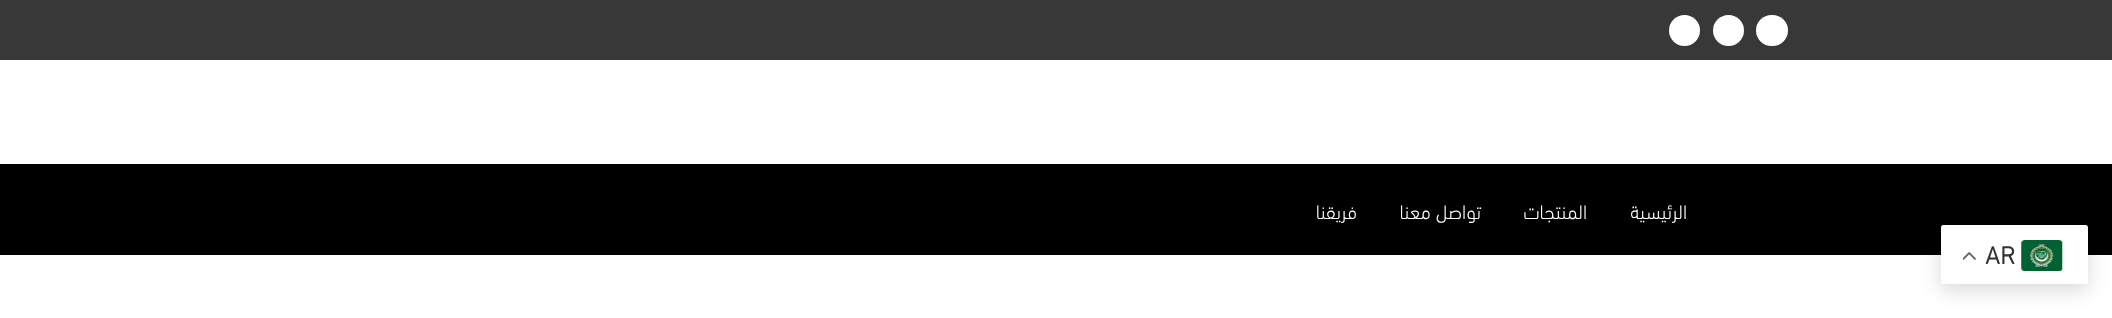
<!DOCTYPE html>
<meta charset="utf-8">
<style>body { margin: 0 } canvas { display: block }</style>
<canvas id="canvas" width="2112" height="318"></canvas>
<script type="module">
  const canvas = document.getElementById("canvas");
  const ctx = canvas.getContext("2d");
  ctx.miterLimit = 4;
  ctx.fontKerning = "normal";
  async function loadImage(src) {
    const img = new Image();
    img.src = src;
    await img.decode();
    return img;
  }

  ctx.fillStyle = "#ffffff";
  ctx.fillRect(0, 0, 2112, 318);
  ctx.fillStyle = "#383838";
  ctx.fillRect(0, 0, 2112, 60);
  ctx.fillStyle = "#ffffff";
  ctx.beginPath();
  ctx.roundRect(1756, 15, 32, 31, 15.5);
  ctx.fill();
  ctx.beginPath();
  ctx.arc(1728.5, 30.5, 15.5, 0, Math.PI * 2);
  ctx.fill();
  ctx.beginPath();
  ctx.arc(1684.5, 30.5, 15.5, 0, Math.PI * 2);
  ctx.fill();
  ctx.fillStyle = "#000000";
  ctx.fillRect(0, 164, 2112, 91);
  ctx.direction = "rtl";
  ctx.font = "300 20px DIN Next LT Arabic";
  ctx.fillStyle = "#ffffff";
  ctx.fillText("الرئيسية", 1687, 219);
  ctx.fillText("المنتجات", 1587, 219);
  ctx.fillText("تواصل معنا", 1481, 219);
  ctx.fillText("فريقنا", 1357, 219);
  ctx.fillStyle = "rgba(0, 0, 0, 0.15)";
  ctx.filter = "blur(9.5px)";
  ctx.beginPath();
  ctx.roundRect(1941, 231, 147, 59, 2.5);
  ctx.fill();
  ctx.filter = "none";
  ctx.fillStyle = "#ffffff";
  ctx.beginPath();
  ctx.roundRect(1941, 225, 147, 59, 2.5);
  ctx.fill();
  ctx.drawImage(await loadImage("img1.png"), 2021, 240, 42, 31);
  ctx.direction = "ltr";
  ctx.font = "bold 25px DIN Next LT Arabic";
  ctx.fillStyle = "#333333";
  ctx.fillText("AR", 1985, 264);
  ctx.drawImage(await loadImage("img2.png"), 1963, 252, 13, 8);
</script>
